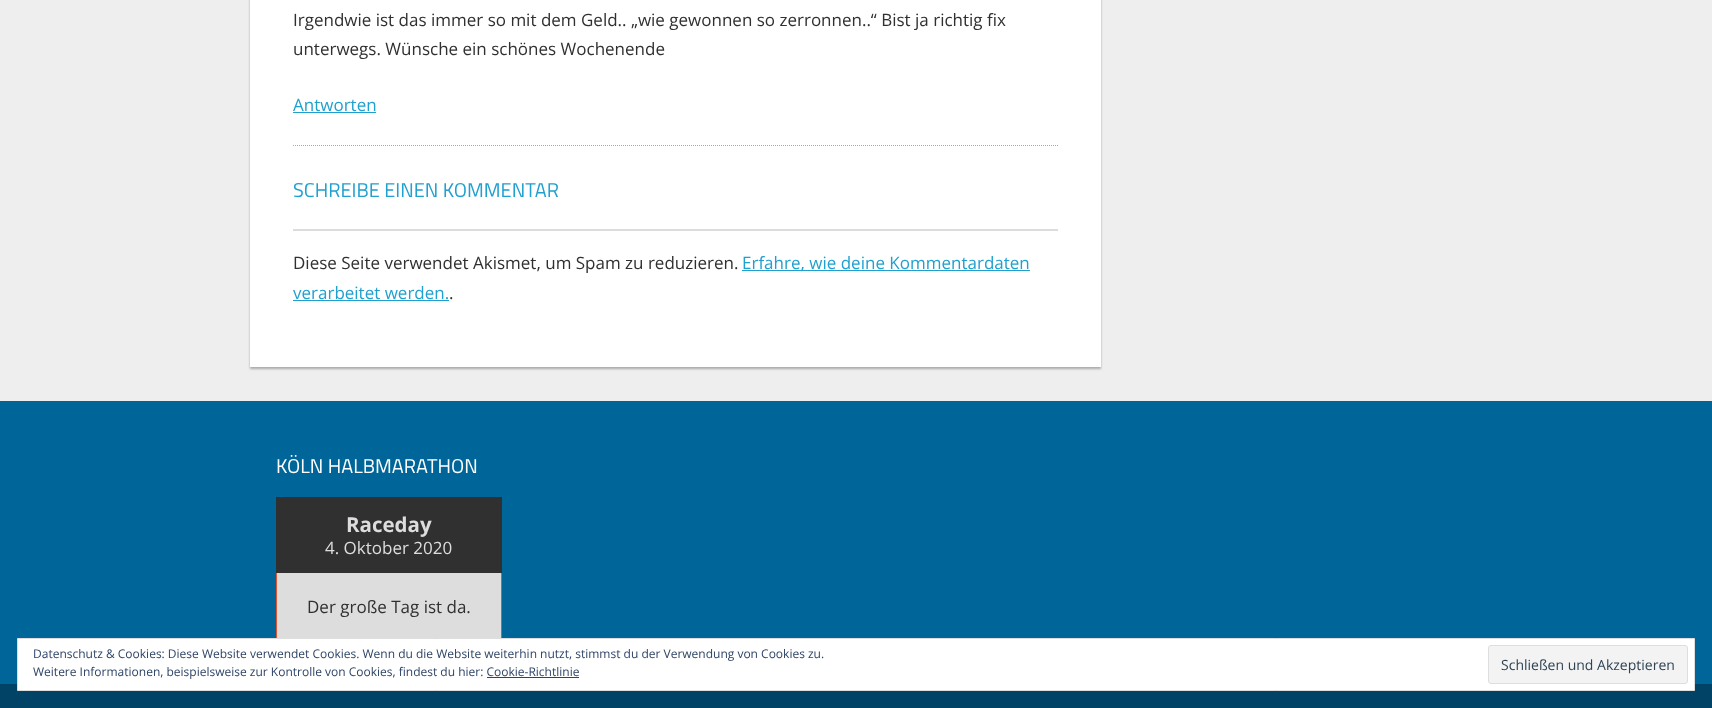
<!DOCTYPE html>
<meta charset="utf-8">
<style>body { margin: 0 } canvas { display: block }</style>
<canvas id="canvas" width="1712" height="708"></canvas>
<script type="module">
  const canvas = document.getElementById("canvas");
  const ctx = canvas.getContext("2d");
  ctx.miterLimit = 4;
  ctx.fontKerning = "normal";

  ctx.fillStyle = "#eeeeee";
  ctx.fillRect(0, 0, 1712, 708);
  ctx.fillStyle = "#aaaaaa";
  ctx.filter = "blur(1px)";
  ctx.beginPath();
  ctx.rect(250, -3, 851, 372);
  ctx.fill();
  ctx.filter = "none";
  ctx.fillStyle = "#ffffff";
  ctx.fillRect(250, 0, 851, 367);
  ctx.beginPath();
  ctx.moveTo(293, 145.5);
  ctx.lineTo(1058, 145.5);
  ctx.strokeStyle = "#aaaaaa";
  ctx.setLineDash([1, 1]);
  ctx.stroke();
  ctx.font = "17px Open Sans";
  ctx.fillStyle = "#303030";
  ctx.fillText("Irgendwie ist das immer so mit dem Geld.. „wie gewonnen so zerronnen..“ Bist ja richtig fix", 293, 26);
  ctx.fillText("unterwegs. Wünsche ein schönes Wochenende", 293, 55);
  ctx.fillStyle = "#20a0cf";
  ctx.fillText("Antworten", 293, 111);
  ctx.fillRect(293, 112, 83, 1);
  ctx.font = "20px Titillium Web";
  ctx.fillText("SCHREIBE EINEN KOMMENTAR", 293, 197);
  ctx.fillStyle = "#dcdcde";
  ctx.fillRect(293, 229, 765, 2);
  ctx.font = "17px Open Sans";
  ctx.fillStyle = "#303030";
  ctx.fillText("Diese Seite verwendet Akismet, um Spam zu reduzieren.", 293, 269);
  ctx.fillStyle = "#20a0cf";
  ctx.fillRect(742, 270, 288, 1);
  ctx.fillText("Erfahre, wie deine Kommentardaten", 742, 269);
  ctx.fillText("verarbeitet werden.", 293, 299);
  ctx.fillRect(293, 300, 156, 1);
  ctx.fillStyle = "#303030";
  ctx.fillText(".", 449, 299);
  ctx.fillStyle = "#006699";
  ctx.fillRect(0, 401, 1712, 283);
  ctx.font = "20px Titillium Web";
  ctx.fillStyle = "#ffffff";
  ctx.fillText("KÖLN HALBMARATHON", 276, 473);
  ctx.fillStyle = "#303030";
  ctx.fillRect(276, 497, 226, 76);
  ctx.font = "bold 20.5px Open Sans";
  ctx.fillStyle = "#dddddd";
  ctx.fillText("Raceday", 346, 532);
  ctx.font = "17px Open Sans";
  ctx.fillText("4. Oktober 2020", 325, 554);
  ctx.fillRect(277, 573, 224, 65);
  ctx.fillStyle = "#dd5533";
  ctx.fillRect(501, 573, 1, 69);
  ctx.fillRect(276, 573, 1, 69);
  ctx.fillStyle = "#303030";
  ctx.fillText("Der große Tag ist da.", 307, 613);
  ctx.fillStyle = "#004366";
  ctx.fillRect(0, 684, 1712, 24);
  ctx.fillStyle = "#ffffff";
  ctx.beginPath();
  ctx.rect(17.5, 638.5, 1677, 52);
  ctx.fill();
  ctx.strokeStyle = "#dedede";
  ctx.setLineDash([]);
  ctx.stroke();
  ctx.font = "12px Open Sans";
  ctx.fillStyle = "#2e4467";
  ctx.fillText("Datenschutz & Cookies: Diese Website verwendet Cookies. Wenn du die Website weiterhin nutzt, stimmst du der Verwendung von Cookies zu.", 33, 658);
  ctx.fillText("Weitere Informationen, beispielsweise zur Kontrolle von Cookies, findest du hier: Cookie-Richtlinie", 33, 676);
  ctx.fillStyle = "#f3f3f3";
  ctx.beginPath();
  ctx.roundRect(1488.5, 645.5, 199, 38, 2.5);
  ctx.fill();
  ctx.stroke();
  ctx.font = "14px Open Sans";
  ctx.fillStyle = "#2e4453";
  ctx.fillText("Schließen und Akzeptieren", 1501, 670);
  ctx.fillStyle = "#2e4467";
  ctx.fillRect(487, 677, 92, 1);
</script>
